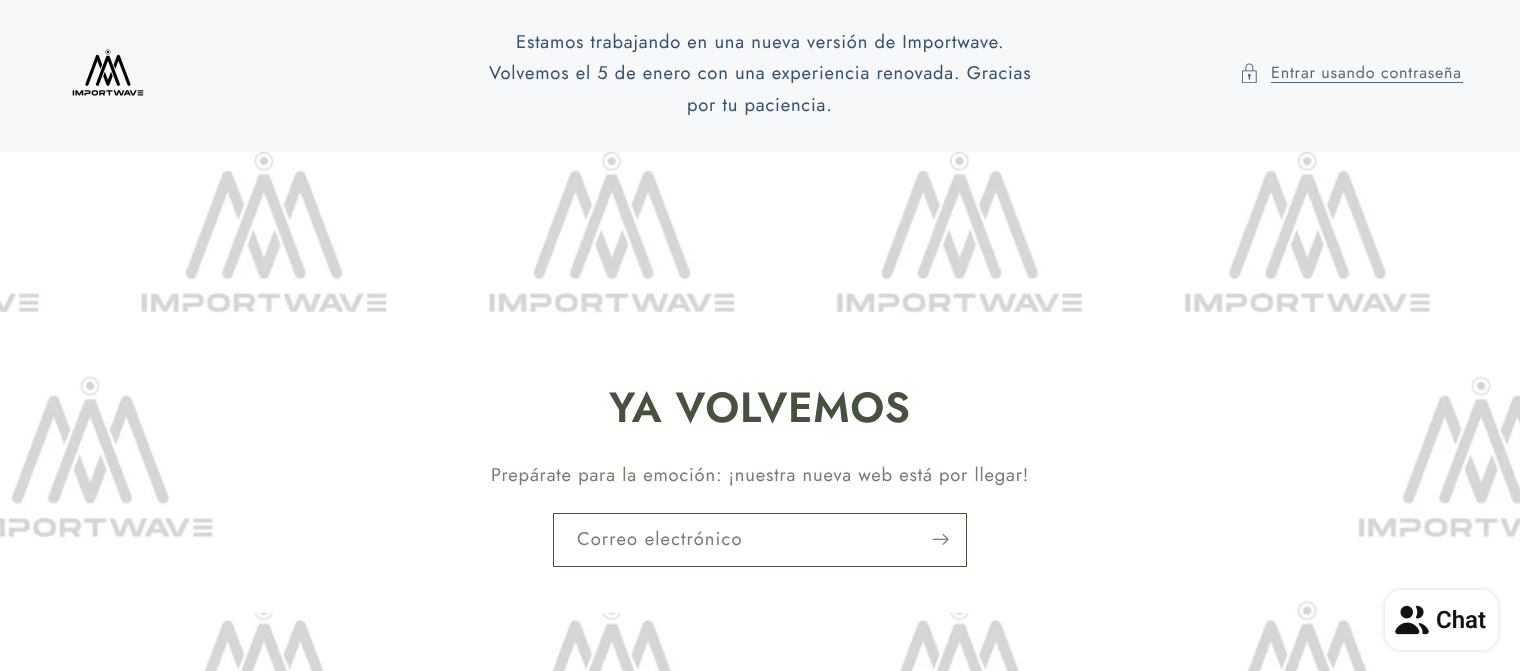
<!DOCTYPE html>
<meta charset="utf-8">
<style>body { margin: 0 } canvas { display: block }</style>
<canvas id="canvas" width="1520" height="671"></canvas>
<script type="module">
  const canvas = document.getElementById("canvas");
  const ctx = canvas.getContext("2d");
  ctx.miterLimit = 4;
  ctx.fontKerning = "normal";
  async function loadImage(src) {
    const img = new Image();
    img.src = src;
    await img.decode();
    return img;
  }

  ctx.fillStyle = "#f7f8fa";
  ctx.fillRect(0, 0, 1520, 671);
  ctx.drawImage(await loadImage("img1.png"), 72, 49, 72, 47);
  ctx.letterSpacing = "0.8px";
  ctx.font = "18.4px Jost";
  ctx.fillStyle = "#385068";
  ctx.fillText("Estamos trabajando en una nueva versión de Importwave.", 516, 48);
  ctx.fillText("Volvemos el 5 de enero con una experiencia renovada. Gracias", 489, 79);
  ctx.fillText("por tu paciencia.", 687, 111);
  ctx.drawImage(await loadImage("img2.png"), 1241, 63, 16, 20);
  ctx.font = "16.1px Jost";
  ctx.fillStyle = "#55697e";
  ctx.fillText("Entrar usando contraseña", 1271, 78);
  ctx.fillRect(1271, 82, 192, 1);
  ctx.drawImage(await loadImage("img3.png"), 0, 152, 1520, 519);
  ctx.fillStyle = "#ffffff";
  ctx.beginPath();
  ctx.roundRect(243, 335, 1035, 278, 16);
  ctx.fill();
  ctx.letterSpacing = "0.6px";
  ctx.font = "600 42px Jost";
  ctx.fillStyle = "#46523e";
  ctx.fillText("YA VOLVEMOS", 609, 422);
  ctx.letterSpacing = "0.8px";
  ctx.font = "18.4px Jost";
  ctx.fillStyle = "#747d6e";
  ctx.fillText("Prepárate para la emoción: ¡nuestra nueva web está por llegar!", 491, 481);
  ctx.strokeStyle = "#46523e";
  ctx.strokeRect(553.5, 513.5, 413, 53);
  ctx.letterSpacing = "1.1px";
  ctx.fillText("Correo electrónico", 577, 545);
  ctx.drawImage(await loadImage("img4.png"), 932, 533, 17, 12);
  ctx.fillStyle = "rgba(0, 0, 0, 0.15)";
  ctx.filter = "blur(2.5px)";
  ctx.beginPath();
  ctx.roundRect(1385, 590, 113, 60, 16);
  ctx.fill();
  ctx.filter = "none";
  ctx.fillStyle = "#ffffff";
  ctx.beginPath();
  ctx.roundRect(1385, 590, 113, 60, 16);
  ctx.fill();
  ctx.drawImage(await loadImage("img5.png"), 1395, 605, 34, 30);
  ctx.letterSpacing = "0px";
  ctx.font = "600 24px Roboto";
  ctx.fillStyle = "#121212";
  ctx.fillText("Chat", 1436, 628);
</script>
